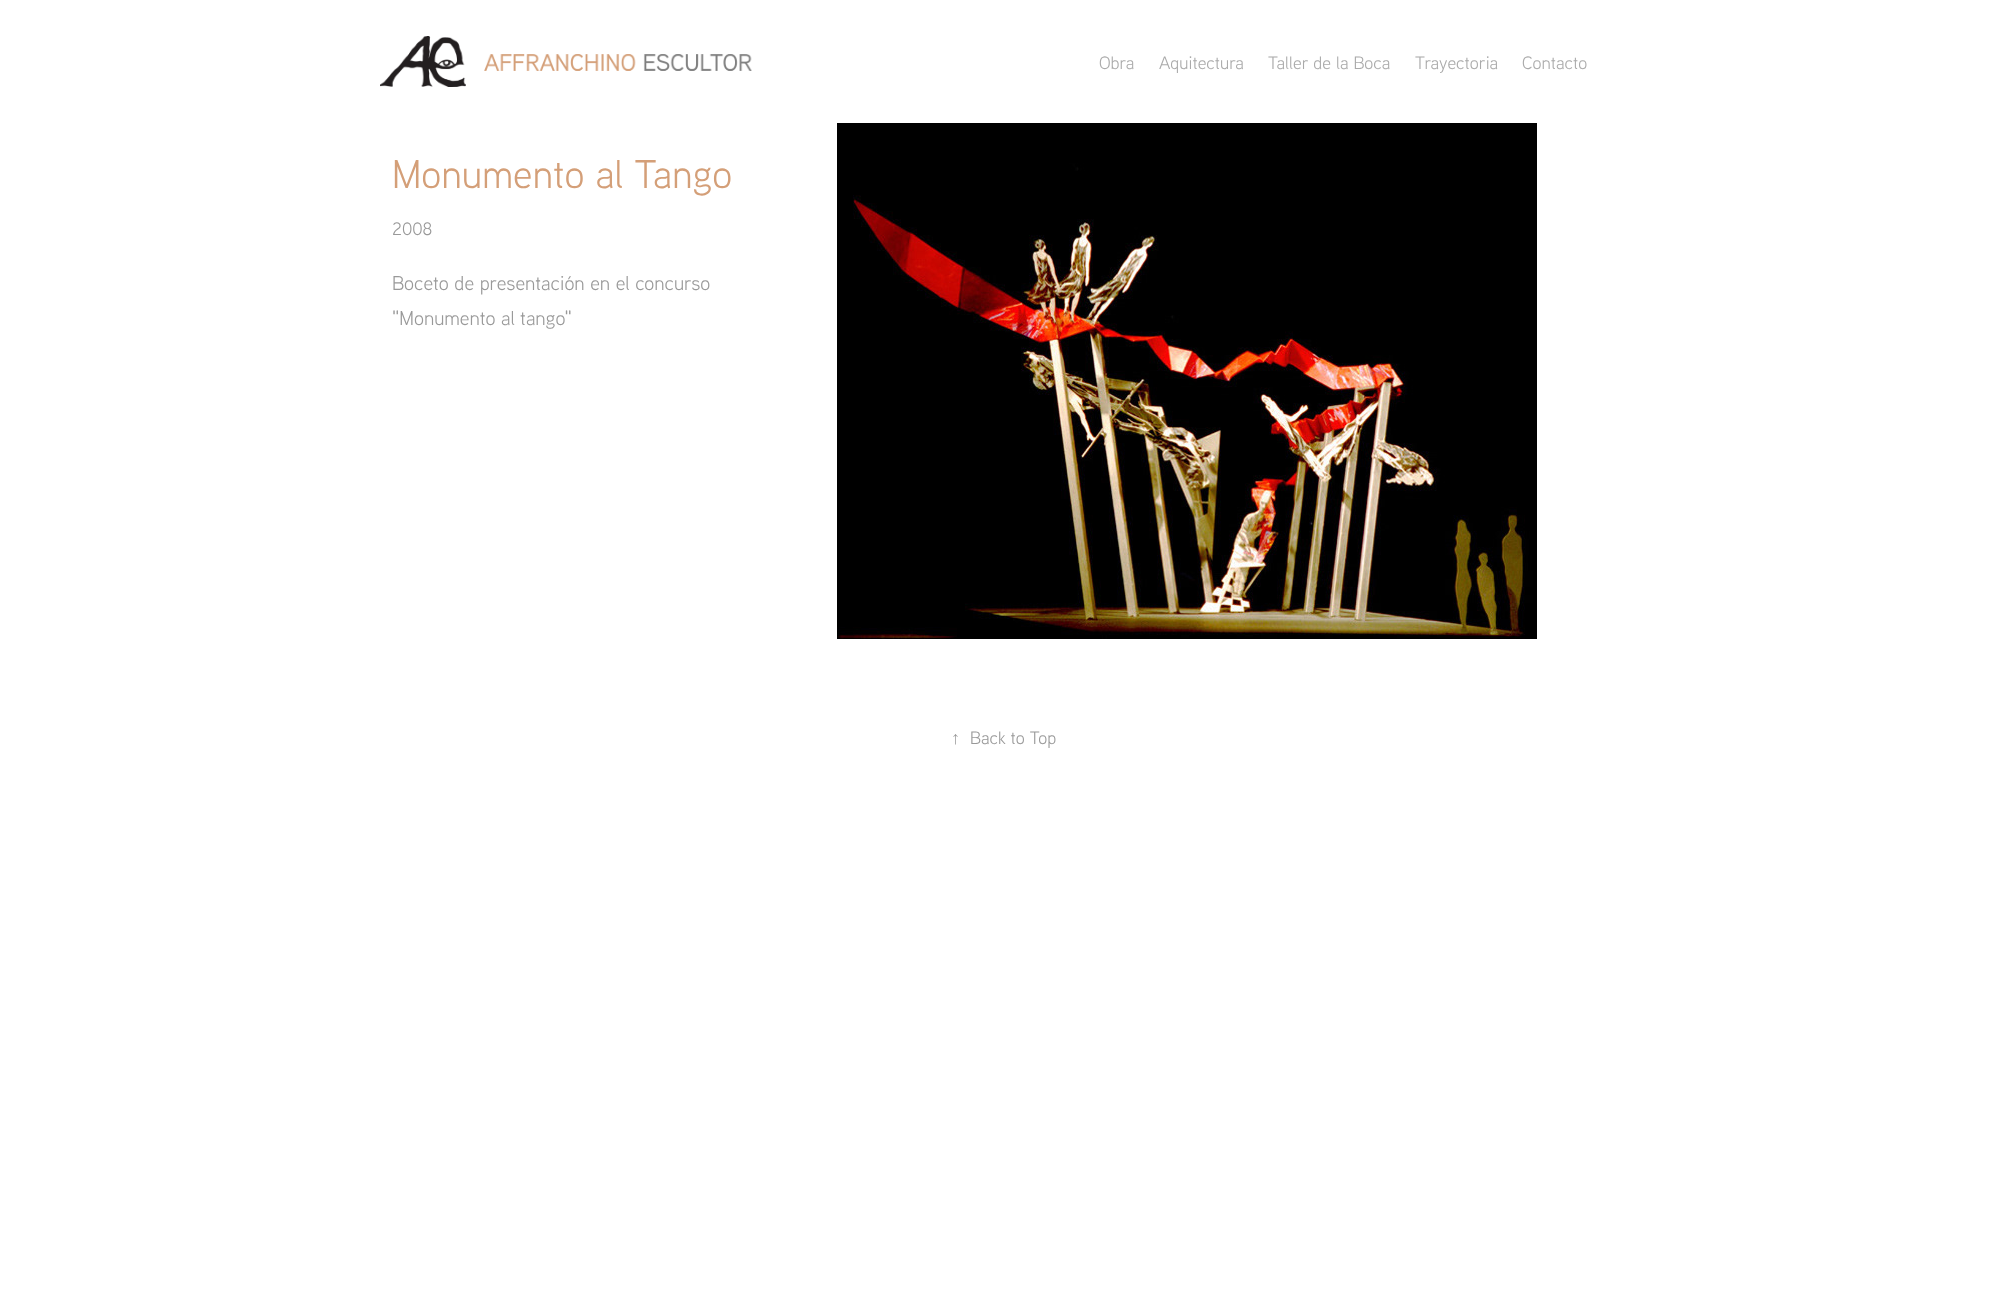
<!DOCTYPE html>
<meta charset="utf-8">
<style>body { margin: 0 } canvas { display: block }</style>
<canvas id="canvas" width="2008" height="1301"></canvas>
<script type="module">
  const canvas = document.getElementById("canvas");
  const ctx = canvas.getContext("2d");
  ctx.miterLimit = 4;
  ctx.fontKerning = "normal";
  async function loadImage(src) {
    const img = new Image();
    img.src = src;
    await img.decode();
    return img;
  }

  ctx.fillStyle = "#ffffff";
  ctx.fillRect(0, 0, 2008, 1301);
  ctx.drawImage(await loadImage("img1.png"), 380, 36, 372, 51);
  ctx.font = "18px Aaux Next";
  ctx.fillStyle = "#aaaaaa";
  ctx.fillText("Obra", 1099, 69);
  ctx.fillText("Aquitectura", 1159, 69);
  ctx.fillText("Taller de la Boca", 1268, 69);
  ctx.fillText("Trayectoria", 1415, 69);
  ctx.fillText("Contacto", 1522, 69);
  ctx.font = "40px Aaux Next";
  ctx.fillStyle = "#d49f78";
  ctx.fillText("Monumento al Tango", 392, 188);
  ctx.font = "18px Aaux Next";
  ctx.fillStyle = "#999999";
  ctx.fillText("2008", 392, 235);
  ctx.font = "20px Aaux Next";
  ctx.fillText("Boceto de presentación en el concurso", 392, 290);
  ctx.fillText("\"Monumento al tango\"", 392, 325);
  ctx.drawImage(await loadImage("img2.png"), 837, 123, 700, 516);
  ctx.font = "18px Liberation Serif";
  ctx.fillText("↑", 951, 744);
  ctx.font = "18px Aaux Next";
  ctx.fillText("Back to Top", 970, 744);
</script>
